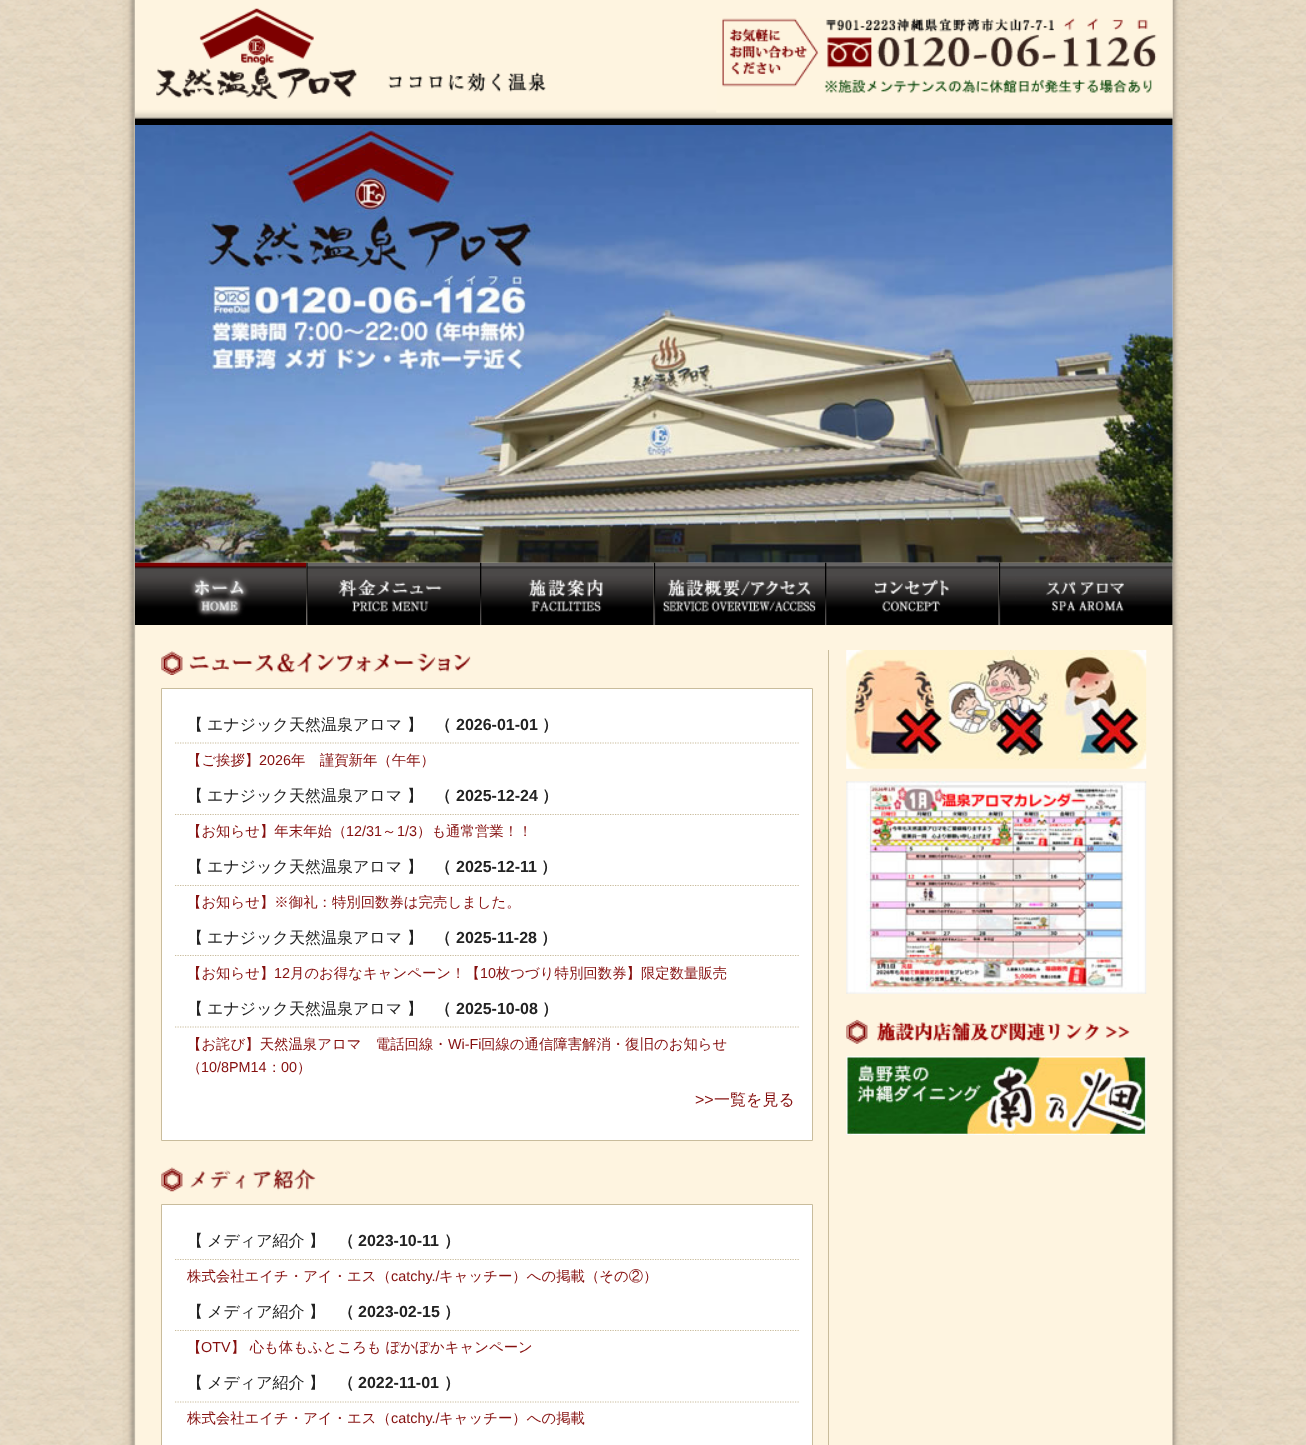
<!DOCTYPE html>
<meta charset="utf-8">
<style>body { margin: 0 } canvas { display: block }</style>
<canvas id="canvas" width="1306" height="1445"></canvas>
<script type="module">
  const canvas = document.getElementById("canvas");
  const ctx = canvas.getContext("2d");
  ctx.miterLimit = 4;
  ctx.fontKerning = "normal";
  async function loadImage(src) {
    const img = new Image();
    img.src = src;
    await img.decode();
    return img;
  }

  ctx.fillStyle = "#ffffff";
  ctx.fillRect(0, 0, 1306, 1445);
  ctx.drawImage(await loadImage("img1.png"), 0, 0, 1306, 1445);
  ctx.drawImage(await loadImage("img2.png"), 122, 0, 1063, 1445);
  ctx.drawImage(await loadImage("img3.png"), 135, 0, 1038, 125);
  ctx.drawImage(await loadImage("img4.png"), 156, 8, 390, 91);
  ctx.drawImage(await loadImage("img5.png"), 716, 18, 444, 95);
  ctx.drawImage(await loadImage("img6.png"), 135, 125, 1038, 438);
  ctx.drawImage(await loadImage("img8.png"), 135, 562, 172, 63);
  ctx.drawImage(await loadImage("img9.png"), 306, 562, 174, 63);
  ctx.drawImage(await loadImage("img10.png"), 480, 562, 174, 63);
  ctx.drawImage(await loadImage("img11.png"), 653, 562, 172, 63);
  ctx.drawImage(await loadImage("img12.png"), 825, 562, 174, 63);
  ctx.drawImage(await loadImage("img13.png"), 998, 562, 175, 63);
  ctx.drawImage(await loadImage("img7.png"), 135, 125, 1038, 438);
  ctx.fillStyle = "#c9bc9c";
  ctx.fillRect(828, 650, 1, 795);
  ctx.drawImage(await loadImage("img14.png"), 161, 651, 310, 24);
  ctx.fillStyle = "#ffffff";
  ctx.beginPath();
  ctx.rect(161.5, 688.5, 651, 452);
  ctx.fill();
  ctx.strokeStyle = "#c9bc9c";
  ctx.stroke();
  ctx.beginPath();
  ctx.moveTo(175, 743);
  ctx.lineTo(799, 743);
  ctx.lineWidth = 1.2;
  ctx.setLineDash([1.25, 1.25]);
  ctx.stroke();
  ctx.font = "500 16px WenQuanYi Zen Hei";
  ctx.fillStyle = "#222222";
  ctx.fillText("【", 187, 730);
  ctx.fillText("エナジック天然温泉アロマ", 207, 730);
  ctx.fillText("】", 407, 730);
  ctx.font = "bold 16px WenQuanYi Zen Hei";
  ctx.fillText("（", 435, 730);
  ctx.font = "bold 16px Liberation Sans";
  ctx.fillText("2026-01-01", 456, 730);
  ctx.font = "bold 16px WenQuanYi Zen Hei";
  ctx.fillText("）", 542, 730);
  ctx.font = "500 14.4px WenQuanYi Zen Hei";
  ctx.fillStyle = "#850f0e";
  ctx.fillText("【ご挨拶】", 187, 765);
  ctx.font = "14.4px Liberation Sans";
  ctx.fillText("2026", 259, 765);
  ctx.font = "500 14.4px WenQuanYi Zen Hei";
  ctx.fillText("年　謹賀新年（午年）", 291, 765);
  ctx.beginPath();
  ctx.moveTo(175, 814.5);
  ctx.lineTo(799, 814.5);
  ctx.stroke();
  ctx.font = "500 16px WenQuanYi Zen Hei";
  ctx.fillStyle = "#222222";
  ctx.fillText("【", 187, 801);
  ctx.fillText("エナジック天然温泉アロマ", 207, 801);
  ctx.fillText("】", 407, 801);
  ctx.font = "bold 16px WenQuanYi Zen Hei";
  ctx.fillText("（", 435, 801);
  ctx.font = "bold 16px Liberation Sans";
  ctx.fillText("2025-12-24", 456, 801);
  ctx.font = "bold 16px WenQuanYi Zen Hei";
  ctx.fillText("）", 542, 801);
  ctx.font = "500 14.4px WenQuanYi Zen Hei";
  ctx.fillStyle = "#850f0e";
  ctx.fillText("【お知らせ】年末年始（", 187, 836);
  ctx.font = "14.4px Liberation Sans";
  ctx.fillText("12/31", 346, 836);
  ctx.font = "500 14.4px WenQuanYi Zen Hei";
  ctx.fillText("～", 382, 836);
  ctx.font = "14.4px Liberation Sans";
  ctx.fillText("1/3", 397, 836);
  ctx.font = "500 14.4px WenQuanYi Zen Hei";
  ctx.fillText("）も通常営業！！", 417, 836);
  ctx.beginPath();
  ctx.moveTo(175, 885.5);
  ctx.lineTo(799, 885.5);
  ctx.stroke();
  ctx.font = "500 16px WenQuanYi Zen Hei";
  ctx.fillStyle = "#222222";
  ctx.fillText("【", 187, 872);
  ctx.fillText("エナジック天然温泉アロマ", 207, 872);
  ctx.fillText("】", 407, 872);
  ctx.font = "bold 16px WenQuanYi Zen Hei";
  ctx.fillText("（", 435, 872);
  ctx.font = "bold 16px Liberation Sans";
  ctx.fillText("2025-12-11", 456, 872);
  ctx.font = "bold 16px WenQuanYi Zen Hei";
  ctx.fillText("）", 541, 872);
  ctx.font = "500 14.4px WenQuanYi Zen Hei";
  ctx.fillStyle = "#850f0e";
  ctx.fillText("【お知らせ】※御礼：特別回数券は完売しました。", 187, 907);
  ctx.beginPath();
  ctx.moveTo(175, 955.5);
  ctx.lineTo(799, 955.5);
  ctx.stroke();
  ctx.font = "500 16px WenQuanYi Zen Hei";
  ctx.fillStyle = "#222222";
  ctx.fillText("【", 187, 943);
  ctx.fillText("エナジック天然温泉アロマ", 207, 943);
  ctx.fillText("】", 407, 943);
  ctx.font = "bold 16px WenQuanYi Zen Hei";
  ctx.fillText("（", 435, 943);
  ctx.font = "bold 16px Liberation Sans";
  ctx.fillText("2025-11-28", 456, 943);
  ctx.font = "bold 16px WenQuanYi Zen Hei";
  ctx.fillText("）", 541, 943);
  ctx.font = "500 14.4px WenQuanYi Zen Hei";
  ctx.fillStyle = "#850f0e";
  ctx.fillText("【お知らせ】", 187, 978);
  ctx.font = "14.4px Liberation Sans";
  ctx.fillText("12", 274, 978);
  ctx.font = "500 14.4px WenQuanYi Zen Hei";
  ctx.fillText("月のお得なキャンペーン！【", 290, 978);
  ctx.font = "14.4px Liberation Sans";
  ctx.fillText("10", 480, 978);
  ctx.font = "500 14.4px WenQuanYi Zen Hei";
  ctx.fillText("枚つづり特別回数券】限定数量販売", 496, 978);
  ctx.beginPath();
  ctx.moveTo(175, 1027);
  ctx.lineTo(799, 1027);
  ctx.stroke();
  ctx.font = "500 16px WenQuanYi Zen Hei";
  ctx.fillStyle = "#222222";
  ctx.fillText("【", 187, 1014);
  ctx.fillText("エナジック天然温泉アロマ", 207, 1014);
  ctx.fillText("】", 407, 1014);
  ctx.font = "bold 16px WenQuanYi Zen Hei";
  ctx.fillText("（", 435, 1014);
  ctx.font = "bold 16px Liberation Sans";
  ctx.fillText("2025-10-08", 456, 1014);
  ctx.font = "bold 16px WenQuanYi Zen Hei";
  ctx.fillText("）", 542, 1014);
  ctx.font = "500 14.4px WenQuanYi Zen Hei";
  ctx.fillStyle = "#850f0e";
  ctx.fillText("【お詫び】天然温泉アロマ　電話回線・", 187, 1049);
  ctx.font = "14.4px Liberation Sans";
  ctx.fillText("Wi-Fi", 448, 1049);
  ctx.font = "500 14.4px WenQuanYi Zen Hei";
  ctx.fillText("回線の通信障害解消・復旧のお知らせ", 481, 1049);
  ctx.fillText("（", 187, 1072);
  ctx.font = "14.4px Liberation Sans";
  ctx.fillText("10/8PM14", 201, 1072);
  ctx.font = "500 14.4px WenQuanYi Zen Hei";
  ctx.fillText("：", 267, 1072);
  ctx.font = "14.4px Liberation Sans";
  ctx.fillText("00", 281, 1072);
  ctx.font = "500 14.4px WenQuanYi Zen Hei";
  ctx.fillText("）", 297, 1072);
  ctx.font = "16px Liberation Sans";
  ctx.fillText(">>", 695, 1105);
  ctx.font = "500 16px WenQuanYi Zen Hei";
  ctx.fillText("一覧を見る", 714, 1105);
  ctx.drawImage(await loadImage("img15.png"), 161, 1167, 155, 25);
  ctx.fillStyle = "#ffffff";
  ctx.beginPath();
  ctx.rect(161.5, 1204.5, 651, 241);
  ctx.fill();
  ctx.lineWidth = 1;
  ctx.setLineDash([]);
  ctx.stroke();
  ctx.beginPath();
  ctx.moveTo(175, 1259.5);
  ctx.lineTo(799, 1259.5);
  ctx.lineWidth = 1.2;
  ctx.setLineDash([1.25, 1.25]);
  ctx.stroke();
  ctx.fillStyle = "#222222";
  ctx.fillText("【", 187, 1246);
  ctx.fillText("メディア紹介", 207, 1246);
  ctx.fillText("】", 309, 1246);
  ctx.font = "bold 16px WenQuanYi Zen Hei";
  ctx.fillText("（", 338, 1246);
  ctx.font = "bold 16px Liberation Sans";
  ctx.fillText("2023-10-11", 358, 1246);
  ctx.font = "bold 16px WenQuanYi Zen Hei";
  ctx.fillText("）", 444, 1246);
  ctx.font = "500 14.4px WenQuanYi Zen Hei";
  ctx.fillStyle = "#850f0e";
  ctx.fillText("株式会社エイチ・アイ・エス（", 187, 1281);
  ctx.font = "14.4px Liberation Sans";
  ctx.fillText("catchy./", 391, 1281);
  ctx.font = "500 14.4px WenQuanYi Zen Hei";
  ctx.fillText("キャッチー）への掲載（その②）", 439, 1281);
  ctx.beginPath();
  ctx.moveTo(175, 1330.5);
  ctx.lineTo(799, 1330.5);
  ctx.stroke();
  ctx.font = "500 16px WenQuanYi Zen Hei";
  ctx.fillStyle = "#222222";
  ctx.fillText("【", 187, 1317);
  ctx.fillText("メディア紹介", 207, 1317);
  ctx.fillText("】", 309, 1317);
  ctx.font = "bold 16px WenQuanYi Zen Hei";
  ctx.fillText("（", 338, 1317);
  ctx.font = "bold 16px Liberation Sans";
  ctx.fillText("2023-02-15", 358, 1317);
  ctx.font = "bold 16px WenQuanYi Zen Hei";
  ctx.fillText("）", 444, 1317);
  ctx.font = "500 14.4px WenQuanYi Zen Hei";
  ctx.fillStyle = "#850f0e";
  ctx.fillText("【", 187, 1352);
  ctx.font = "14.4px Liberation Sans";
  ctx.fillText("OTV", 201, 1352);
  ctx.font = "500 14.4px WenQuanYi Zen Hei";
  ctx.fillText("】 心も体もふところも ぽかぽかキャンペーン", 231, 1352);
  ctx.beginPath();
  ctx.moveTo(175, 1402);
  ctx.lineTo(799, 1402);
  ctx.stroke();
  ctx.font = "500 16px WenQuanYi Zen Hei";
  ctx.fillStyle = "#222222";
  ctx.fillText("【", 187, 1388);
  ctx.fillText("メディア紹介", 207, 1388);
  ctx.fillText("】", 309, 1388);
  ctx.font = "bold 16px WenQuanYi Zen Hei";
  ctx.fillText("（", 338, 1388);
  ctx.font = "bold 16px Liberation Sans";
  ctx.fillText("2022-11-01", 358, 1388);
  ctx.font = "bold 16px WenQuanYi Zen Hei";
  ctx.fillText("）", 444, 1388);
  ctx.font = "500 14.4px WenQuanYi Zen Hei";
  ctx.fillStyle = "#850f0e";
  ctx.fillText("株式会社エイチ・アイ・エス（", 187, 1423);
  ctx.font = "14.4px Liberation Sans";
  ctx.fillText("catchy./", 391, 1423);
  ctx.font = "500 14.4px WenQuanYi Zen Hei";
  ctx.fillText("キャッチー）への掲載", 439, 1423);
  ctx.drawImage(await loadImage("img16.png"), 846, 650, 301, 119);
  ctx.drawImage(await loadImage("img17.png"), 846, 781, 301, 213);
  ctx.drawImage(await loadImage("img18.png"), 846, 1019, 284, 25);
  ctx.drawImage(await loadImage("img19.png"), 846, 1056, 301, 79);
</script>
